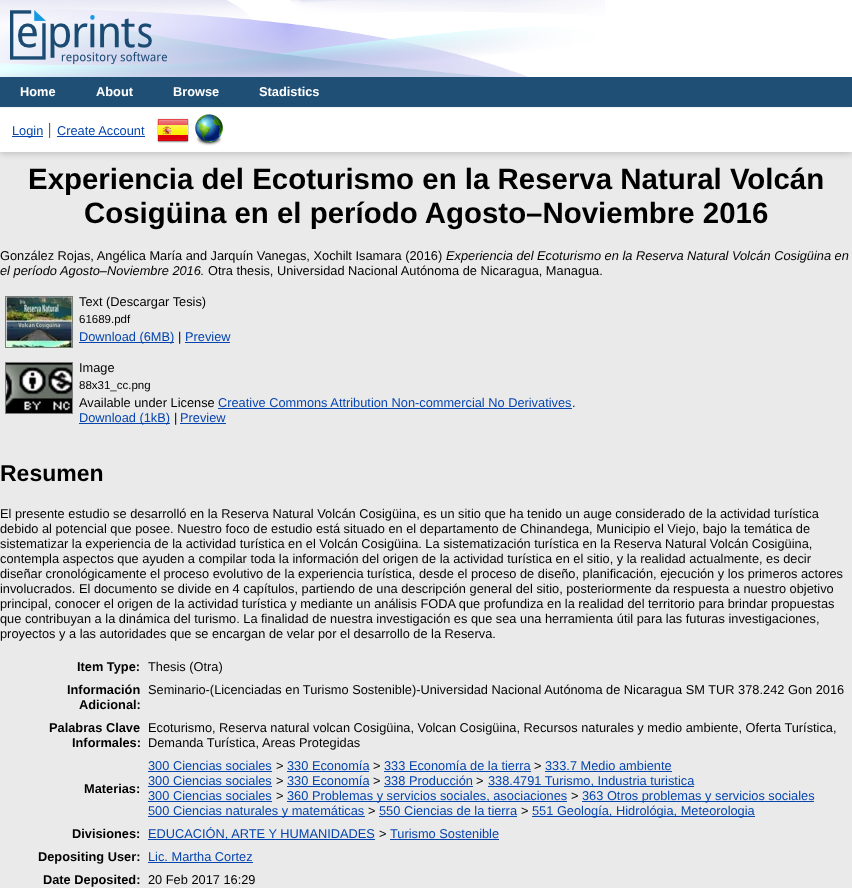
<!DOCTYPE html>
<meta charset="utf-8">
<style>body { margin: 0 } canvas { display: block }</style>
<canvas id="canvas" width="852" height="888"></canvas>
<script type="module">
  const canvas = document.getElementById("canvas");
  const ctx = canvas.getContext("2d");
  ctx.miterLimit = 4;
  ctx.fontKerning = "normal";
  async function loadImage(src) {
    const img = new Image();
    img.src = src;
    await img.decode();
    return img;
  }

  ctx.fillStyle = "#eaeaea";
  ctx.fillRect(0, 0, 852, 888);
  ctx.fillStyle = "#ffffff";
  ctx.fillRect(0, 0, 852, 77);
  ctx.drawImage(await loadImage("img1.png"), 0, 0, 605, 77);
  ctx.drawImage(await loadImage("img2.png"), 10, 10, 157, 54);
  ctx.fillStyle = "#204f76";
  ctx.fillRect(0, 77, 852, 30);
  ctx.fillStyle = "#ffffff";
  ctx.fillRect(0, 107, 852, 1);
  ctx.font = "bold 12.8px Liberation Sans";
  ctx.fillText("Home", 20, 96);
  ctx.fillText("About", 96, 96);
  ctx.fillText("Browse", 173, 96);
  ctx.fillText("Stadistics", 259, 96);
  ctx.fillStyle = "rgba(100, 100, 100, 0.3)";
  ctx.filter = "blur(3px)";
  ctx.beginPath();
  ctx.rect(0, 110, 852, 44);
  ctx.fill();
  ctx.filter = "none";
  ctx.fillStyle = "#ffffff";
  ctx.fillRect(0, 108, 852, 44);
  ctx.fillStyle = "#606060";
  ctx.fillRect(49, 123, 1, 15);
  ctx.fillStyle = "#0645ad";
  ctx.fillRect(12, 136, 31, 1);
  ctx.font = "12.8px Liberation Sans";
  ctx.fillText("Login", 12, 135);
  ctx.fillStyle = "#e8e8e8";
  ctx.fillRect(50, 123, 1, 15);
  ctx.fillStyle = "#0645ad";
  ctx.fillText("Create Account", 57, 135);
  ctx.fillRect(57, 136, 88, 1);
  ctx.drawImage(await loadImage("img3.png"), 157, 118, 32, 25);
  ctx.drawImage(await loadImage("img4.png"), 195, 114, 28, 32);
  ctx.font = "bold 29.45px Liberation Sans";
  ctx.fillStyle = "#000000";
  ctx.fillText("Experiencia del Ecoturismo en la Reserva Natural Volcán", 28, 189);
  ctx.fillText("Cosigüina en el período Agosto–Noviembre 2016", 84, 223);
  ctx.font = "12.8px Liberation Sans";
  ctx.fillText("González Rojas, Angélica María and Jarquín Vanegas, Xochilt Isamara (2016)", 0, 260);
  ctx.font = "italic 12.8px Liberation Sans";
  ctx.fillText("Experiencia del Ecoturismo en la Reserva Natural Volcán Cosigüina en", 446, 260);
  ctx.fillText("el período Agosto–Noviembre 2016.", 0, 275);
  ctx.font = "12.8px Liberation Sans";
  ctx.fillText("Otra thesis, Universidad Nacional Autónoma de Nicaragua, Managua.", 208, 275);
  ctx.drawImage(await loadImage("img5.png"), 5, 296, 68, 52);
  ctx.fillText("Text (Descargar Tesis)", 79, 306);
  ctx.font = "11.5px Liberation Sans";
  ctx.fillText("61689.pdf", 79, 323);
  ctx.fillStyle = "#0645ad";
  ctx.fillRect(79, 342, 95, 1);
  ctx.font = "12.8px Liberation Sans";
  ctx.fillText("Download (6MB)", 79, 341);
  ctx.fillStyle = "#000000";
  ctx.fillText("|", 178, 341);
  ctx.fillStyle = "#0645ad";
  ctx.fillText("Preview", 185, 341);
  ctx.fillRect(185, 342, 45, 1);
  ctx.drawImage(await loadImage("img6.png"), 5, 362, 68, 52);
  ctx.fillStyle = "#000000";
  ctx.fillText("Image", 79, 372);
  ctx.font = "11.5px Liberation Sans";
  ctx.fillText("88x31_cc.png", 79, 389);
  ctx.font = "12.8px Liberation Sans";
  ctx.fillText("Available under License", 79, 407);
  ctx.fillStyle = "#0645ad";
  ctx.fillText("Creative Commons Attribution Non-commercial No Derivatives", 218, 407);
  ctx.fillStyle = "#000000";
  ctx.fillText(".", 572, 407);
  ctx.fillStyle = "#0645ad";
  ctx.fillRect(218, 408, 354, 1);
  ctx.fillRect(79, 423, 91, 1);
  ctx.fillText("Download (1kB)", 79, 422);
  ctx.fillStyle = "#000000";
  ctx.fillText("|", 174, 422);
  ctx.fillStyle = "#0645ad";
  ctx.fillText("Preview", 180, 422);
  ctx.fillRect(180, 423, 46, 1);
  ctx.font = "bold 23px Liberation Sans";
  ctx.fillStyle = "#000000";
  ctx.fillText("Resumen", 0, 481);
  ctx.font = "12.8px Liberation Sans";
  ctx.fillText("El presente estudio se desarrolló en la Reserva Natural Volcán Cosigüina, es un sitio que ha tenido un auge considerado de la actividad turística", 0, 518);
  ctx.fillText("debido al potencial que posee. Nuestro foco de estudio está situado en el departamento de Chinandega, Municipio el Viejo, bajo la temática de", 0, 533);
  ctx.fillText("sistematizar la experiencia de la actividad turística en el Volcán Cosigüina. La sistematización turística en la Reserva Natural Volcán Cosigüina,", 0, 548);
  ctx.fillText("contempla aspectos que ayuden a compilar toda la información del origen de la actividad turística en el sitio, y la realidad actualmente, es decir", 0, 563);
  ctx.fillText("diseñar cronológicamente el proceso evolutivo de la experiencia turística, desde el proceso de diseño, planificación, ejecución y los primeros actores", 0, 578);
  ctx.fillText("involucrados. El documento se divide en 4 capítulos, partiendo de una descripción general del sitio, posteriormente da respuesta a nuestro objetivo", 0, 593);
  ctx.fillText("principal, conocer el origen de la actividad turística y mediante un análisis FODA que profundiza en la realidad del territorio para brindar propuestas", 0, 608);
  ctx.fillText("que contribuyan a la dinámica del turismo. La finalidad de nuestra investigación es que sea una herramienta útil para las futuras investigaciones,", 0, 623);
  ctx.fillText("proyectos y a las autoridades que se encargan de velar por el desarrollo de la Reserva.", 0, 638);
  ctx.font = "bold 12.8px Liberation Sans";
  ctx.fillText("Item Type:", 77, 671);
  ctx.font = "12.8px Liberation Sans";
  ctx.fillText("Thesis (Otra)", 148, 671);
  ctx.font = "bold 12.8px Liberation Sans";
  ctx.fillText("Información", 67, 694);
  ctx.fillText("Adicional:", 79, 709);
  ctx.font = "12.8px Liberation Sans";
  ctx.fillText("Seminario-(Licenciadas en Turismo Sostenible)-Universidad Nacional Autónoma de Nicaragua SM TUR 378.242 Gon 2016", 148, 694);
  ctx.font = "bold 12.8px Liberation Sans";
  ctx.fillText("Palabras Clave", 49, 732);
  ctx.fillText("Informales:", 72, 747);
  ctx.font = "12.8px Liberation Sans";
  ctx.fillText("Ecoturismo, Reserva natural volcan Cosigüina, Volcan Cosigüina, Recursos naturales y medio ambiente, Oferta Turística,", 148, 732);
  ctx.fillText("Demanda Turística,", 148, 747);
  ctx.fillText("Areas Protegidas", 262, 747);
  ctx.font = "bold 12.8px Liberation Sans";
  ctx.fillText("Materias:", 84, 793);
  ctx.font = "12.8px Liberation Sans";
  ctx.fillStyle = "#0645ad";
  ctx.fillText("300 Ciencias sociales", 148, 770);
  ctx.fillRect(148, 771, 124, 1);
  ctx.fillStyle = "#000000";
  ctx.fillText(">", 276, 770);
  ctx.fillStyle = "#0645ad";
  ctx.fillText("330 Economía", 287, 770);
  ctx.fillRect(287, 771, 82, 1);
  ctx.fillStyle = "#000000";
  ctx.fillText(">", 373, 770);
  ctx.fillStyle = "#0645ad";
  ctx.fillText("333 Economía de la tierra", 384, 770);
  ctx.fillRect(384, 771, 147, 1);
  ctx.fillStyle = "#000000";
  ctx.fillText(">", 534, 770);
  ctx.fillStyle = "#0645ad";
  ctx.fillText("333.7 Medio ambiente", 545, 770);
  ctx.fillRect(545, 771, 127, 1);
  ctx.fillText("300 Ciencias sociales", 148, 785);
  ctx.fillRect(148, 786, 124, 1);
  ctx.fillStyle = "#000000";
  ctx.fillText(">", 276, 785);
  ctx.fillStyle = "#0645ad";
  ctx.fillText("330 Economía", 287, 785);
  ctx.fillRect(287, 786, 82, 1);
  ctx.fillStyle = "#000000";
  ctx.fillText(">", 373, 785);
  ctx.fillStyle = "#0645ad";
  ctx.fillText("338 Producción", 384, 785);
  ctx.fillRect(384, 786, 89, 1);
  ctx.fillStyle = "#000000";
  ctx.fillText(">", 476, 785);
  ctx.fillStyle = "#0645ad";
  ctx.fillRect(488, 786, 206, 1);
  ctx.fillText("338.4791 Turismo, Industria turistica", 488, 785);
  ctx.fillText("300 Ciencias sociales", 148, 800);
  ctx.fillRect(148, 801, 124, 1);
  ctx.fillStyle = "#000000";
  ctx.fillText(">", 276, 800);
  ctx.fillStyle = "#0645ad";
  ctx.fillRect(287, 801, 280, 1);
  ctx.fillText("360 Problemas y servicios sociales, asociaciones", 287, 800);
  ctx.fillStyle = "#000000";
  ctx.fillText(">", 571, 800);
  ctx.fillStyle = "#0645ad";
  ctx.fillRect(582, 801, 232, 1);
  ctx.fillText("363 Otros problemas y servicios sociales", 582, 800);
  ctx.fillRect(148, 816, 217, 1);
  ctx.fillText("500 Ciencias naturales y matemáticas", 148, 815);
  ctx.fillStyle = "#000000";
  ctx.fillText(">", 368, 815);
  ctx.fillStyle = "#0645ad";
  ctx.fillText("550 Ciencias de la tierra", 379, 815);
  ctx.fillRect(379, 816, 138, 1);
  ctx.fillStyle = "#000000";
  ctx.fillText(">", 521, 815);
  ctx.fillStyle = "#0645ad";
  ctx.fillRect(532, 816, 223, 1);
  ctx.fillText("551 Geología, Hidrológia, Meteorologia", 532, 815);
  ctx.font = "bold 12.8px Liberation Sans";
  ctx.fillStyle = "#000000";
  ctx.fillText("Divisiones:", 72, 838);
  ctx.fillStyle = "#0645ad";
  ctx.fillRect(148, 839, 227, 1);
  ctx.font = "12.8px Liberation Sans";
  ctx.fillText("EDUCACIÓN, ARTE Y HUMANIDADES", 148, 838);
  ctx.fillStyle = "#000000";
  ctx.fillText(">", 379, 838);
  ctx.fillStyle = "#0645ad";
  ctx.fillText("Turismo Sostenible", 390, 838);
  ctx.fillRect(390, 839, 109, 1);
  ctx.font = "bold 12.8px Liberation Sans";
  ctx.fillStyle = "#000000";
  ctx.fillText("Depositing User:", 38, 861);
  ctx.font = "12.8px Liberation Sans";
  ctx.fillStyle = "#0645ad";
  ctx.fillText("Lic. Martha Cortez", 148, 861);
  ctx.fillRect(148, 862, 105, 1);
  ctx.font = "bold 12.8px Liberation Sans";
  ctx.fillStyle = "#000000";
  ctx.fillText("Date Deposited:", 43, 884);
  ctx.font = "12.8px Liberation Sans";
  ctx.fillText("20 Feb 2017 16:29", 148, 884);
</script>
